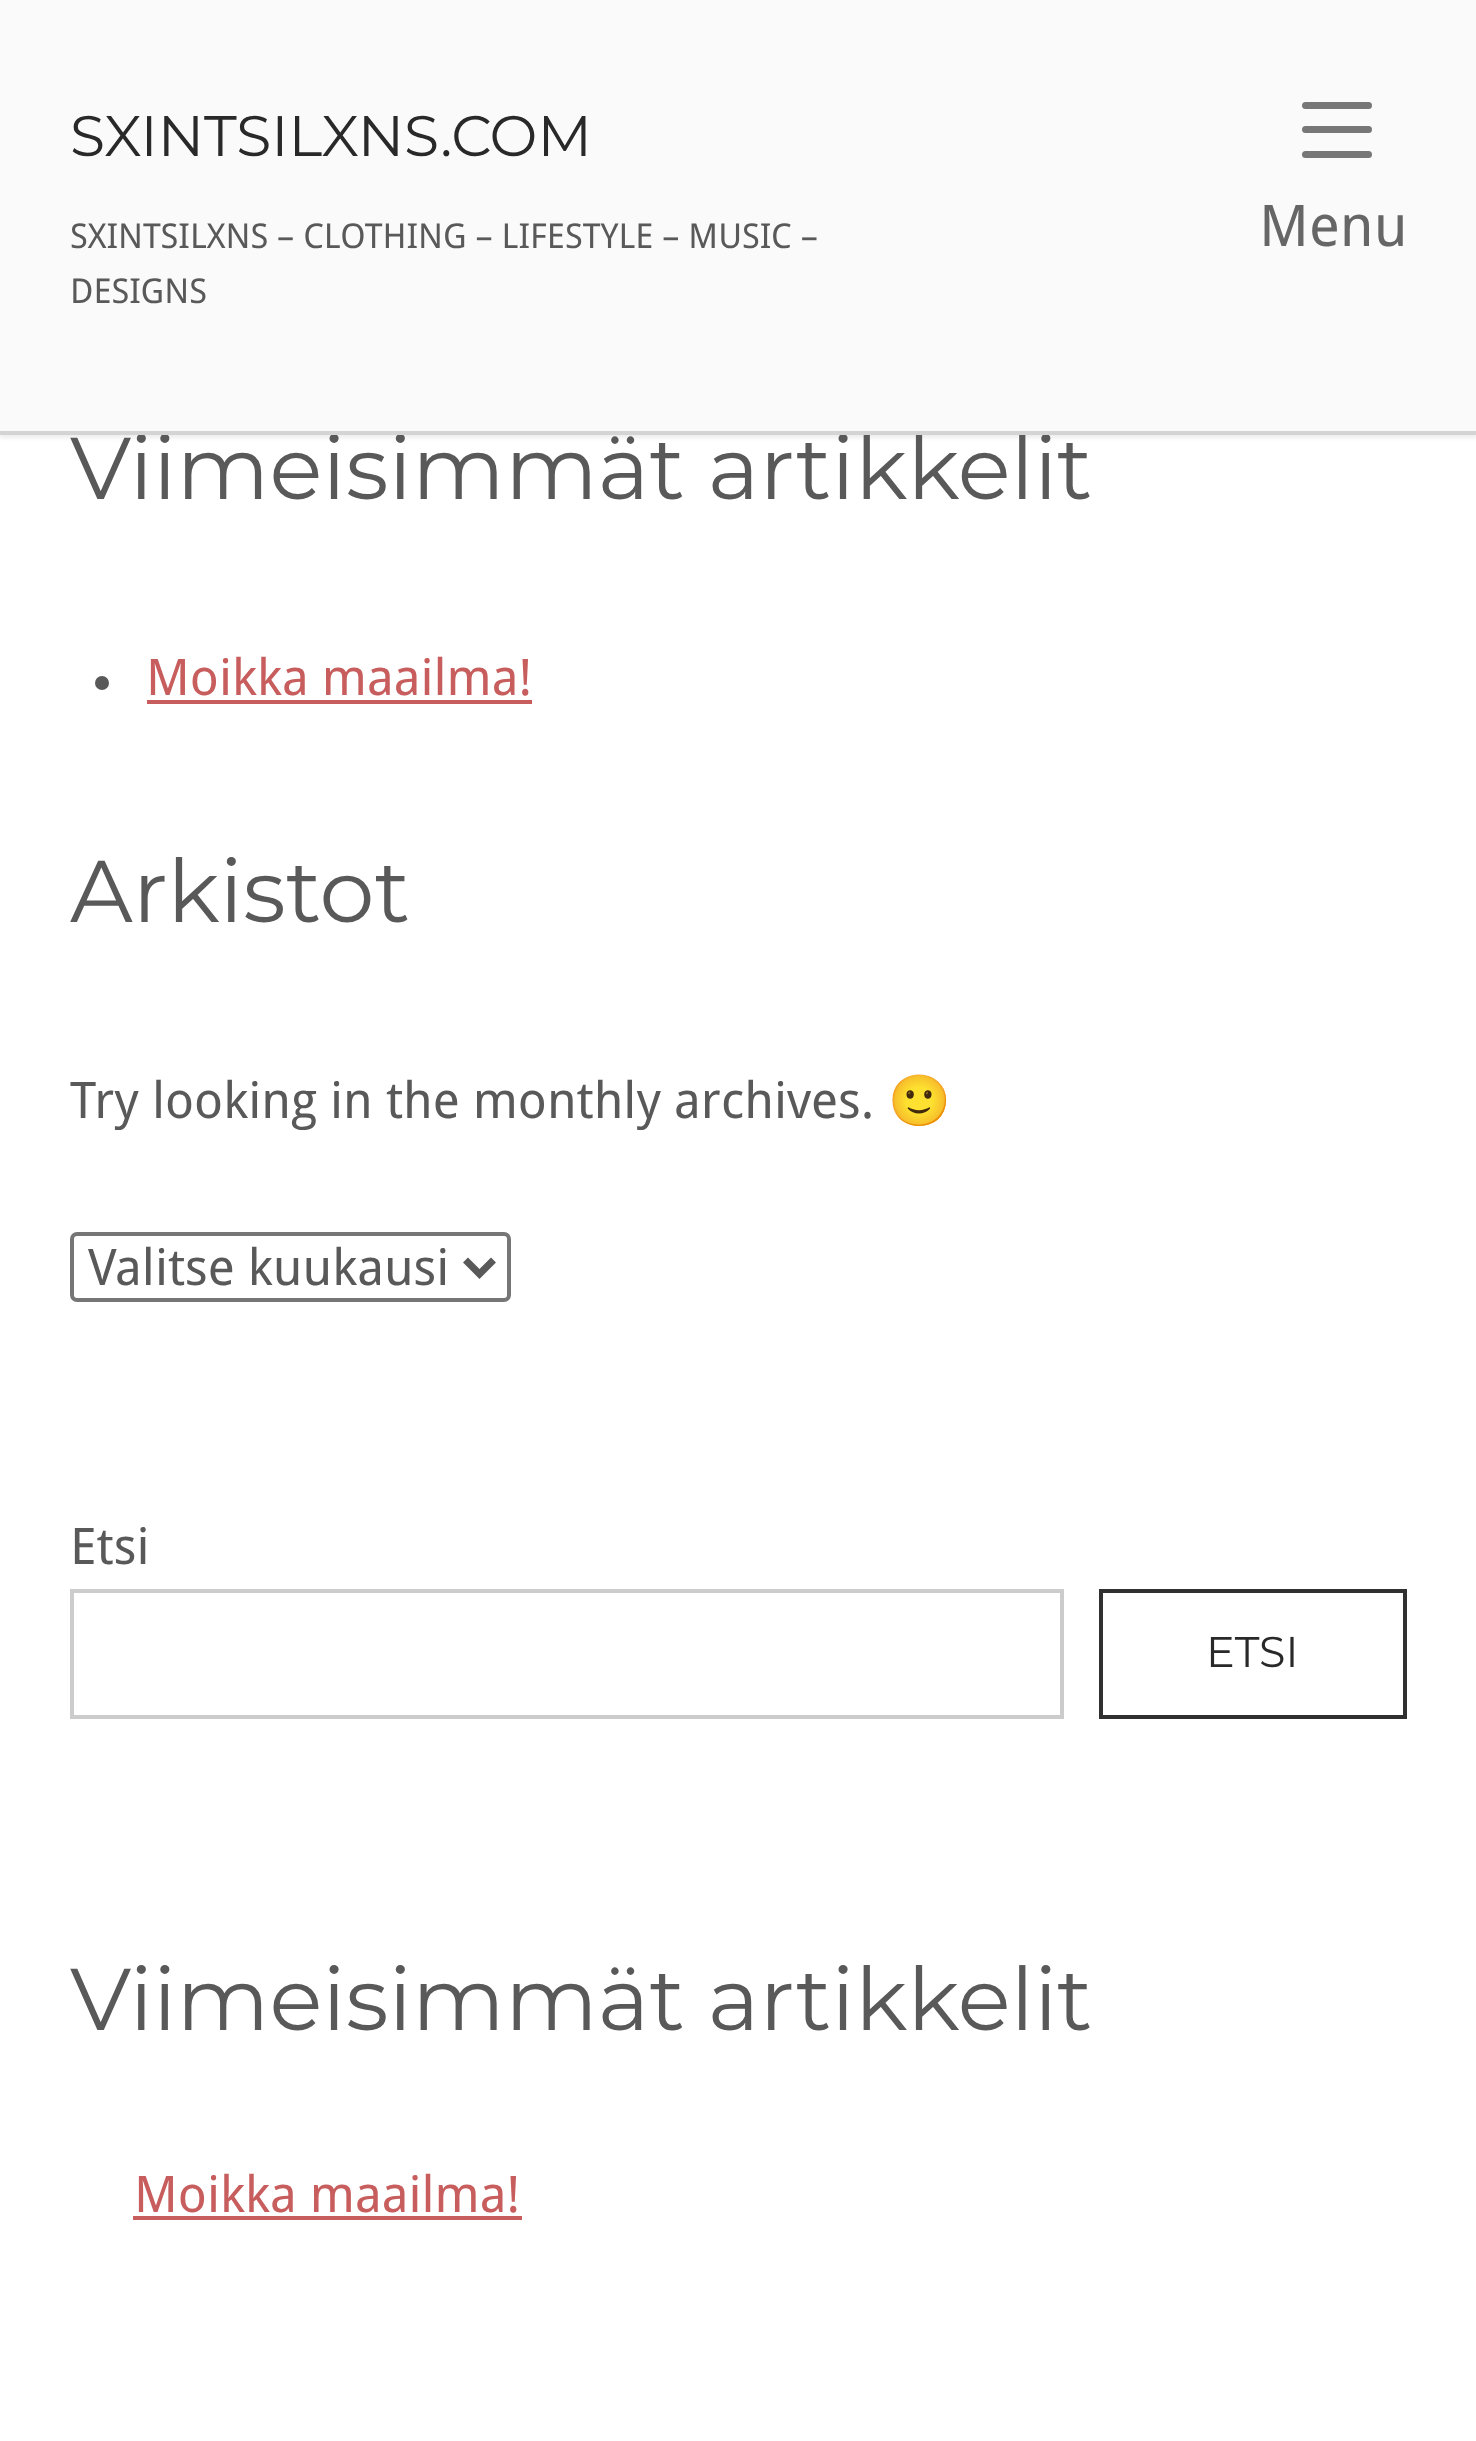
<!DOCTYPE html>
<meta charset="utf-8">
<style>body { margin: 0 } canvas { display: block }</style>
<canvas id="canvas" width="1476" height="2441"></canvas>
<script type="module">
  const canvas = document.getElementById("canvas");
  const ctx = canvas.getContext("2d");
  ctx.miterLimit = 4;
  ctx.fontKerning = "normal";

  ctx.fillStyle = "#ffffff";
  ctx.fillRect(0, 0, 1476, 2441);
  ctx.fillStyle = "rgba(0, 0, 0, 0.07)";
  ctx.filter = "blur(2px)";
  ctx.beginPath();
  ctx.rect(0, 4, 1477, 434);
  ctx.fill();
  ctx.filter = "none";
  ctx.fillStyle = "#fafafa";
  ctx.fillRect(0, 0, 1476, 431);
  ctx.font = "100 87.5px Montserrat";
  ctx.fillStyle = "#595959";
  ctx.fillText("Viimeisimmät artikkelit", 70, 499);
  ctx.fillStyle = "#d4d4d4";
  ctx.fillRect(0, 431, 1476, 4);
  ctx.font = "100 57px Montserrat";
  ctx.fillStyle = "#292929";
  ctx.fillText("SXINTSILXNS.COM", 70, 156);
  ctx.font = "34.25px Droid Sans";
  ctx.fillStyle = "#595959";
  ctx.fillText("SXINTSILXNS – CLOTHING – LIFESTYLE – MUSIC –", 70, 248);
  ctx.fillText("DESIGNS", 70, 303);
  ctx.fillStyle = "#777777";
  ctx.beginPath();
  ctx.roundRect(1302, 102, 70, 7, 3.5);
  ctx.fill();
  ctx.beginPath();
  ctx.roundRect(1302, 126, 70, 7, 3.5);
  ctx.fill();
  ctx.beginPath();
  ctx.roundRect(1302, 151, 70, 7, 3.5);
  ctx.fill();
  ctx.font = "57.5px Droid Sans";
  ctx.fillStyle = "#666666";
  ctx.fillText("Menu", 1259, 246);
  ctx.fillStyle = "#595959";
  ctx.beginPath();
  ctx.arc(102, 683, 7, 0, Math.PI * 2);
  ctx.fill();
  ctx.font = "50.4px Droid Sans";
  ctx.fillStyle = "#c75d5d";
  ctx.fillText("Moikka maailma!", 146, 695);
  ctx.fillRect(147, 700, 385, 4);
  ctx.font = "100 87.5px Montserrat";
  ctx.fillStyle = "#595959";
  ctx.fillText("Arkistot", 70, 922);
  ctx.font = "50.4px Droid Sans";
  ctx.fillText("Try looking in the monthly archives.", 70, 1118);
  ctx.font = "50.4px Noto Color Emoji";
  ctx.fillText("🙂", 888, 1118);
  ctx.beginPath();
  ctx.roundRect(72, 1234, 437, 66, 5);
  ctx.strokeStyle = "#767676";
  ctx.lineWidth = 4;
  ctx.stroke();
  ctx.beginPath();
  ctx.moveTo(465.5, 1260);
  ctx.lineTo(479.5, 1274);
  ctx.lineTo(493.5, 1260);
  ctx.strokeStyle = "#595959";
  ctx.lineWidth = 7;
  ctx.stroke();
  ctx.font = "50.4px Droid Sans";
  ctx.fillText("Valitse kuukausi", 88, 1285);
  ctx.fillText("Etsi", 70, 1564);
  ctx.strokeStyle = "#cccccc";
  ctx.lineWidth = 4;
  ctx.strokeRect(72, 1591, 990, 126);
  ctx.strokeStyle = "#303030";
  ctx.strokeRect(1101, 1591, 304, 126);
  ctx.font = "100 43px Montserrat";
  ctx.fillStyle = "#292929";
  ctx.fillText("ETSI", 1206, 1667);
  ctx.font = "100 87.5px Montserrat";
  ctx.fillStyle = "#595959";
  ctx.fillText("Viimeisimmät artikkelit", 70, 2030);
  ctx.font = "50.4px Droid Sans";
  ctx.fillStyle = "#c75d5d";
  ctx.fillText("Moikka maailma!", 134, 2212);
  ctx.fillRect(133, 2216, 389, 4);
</script>
